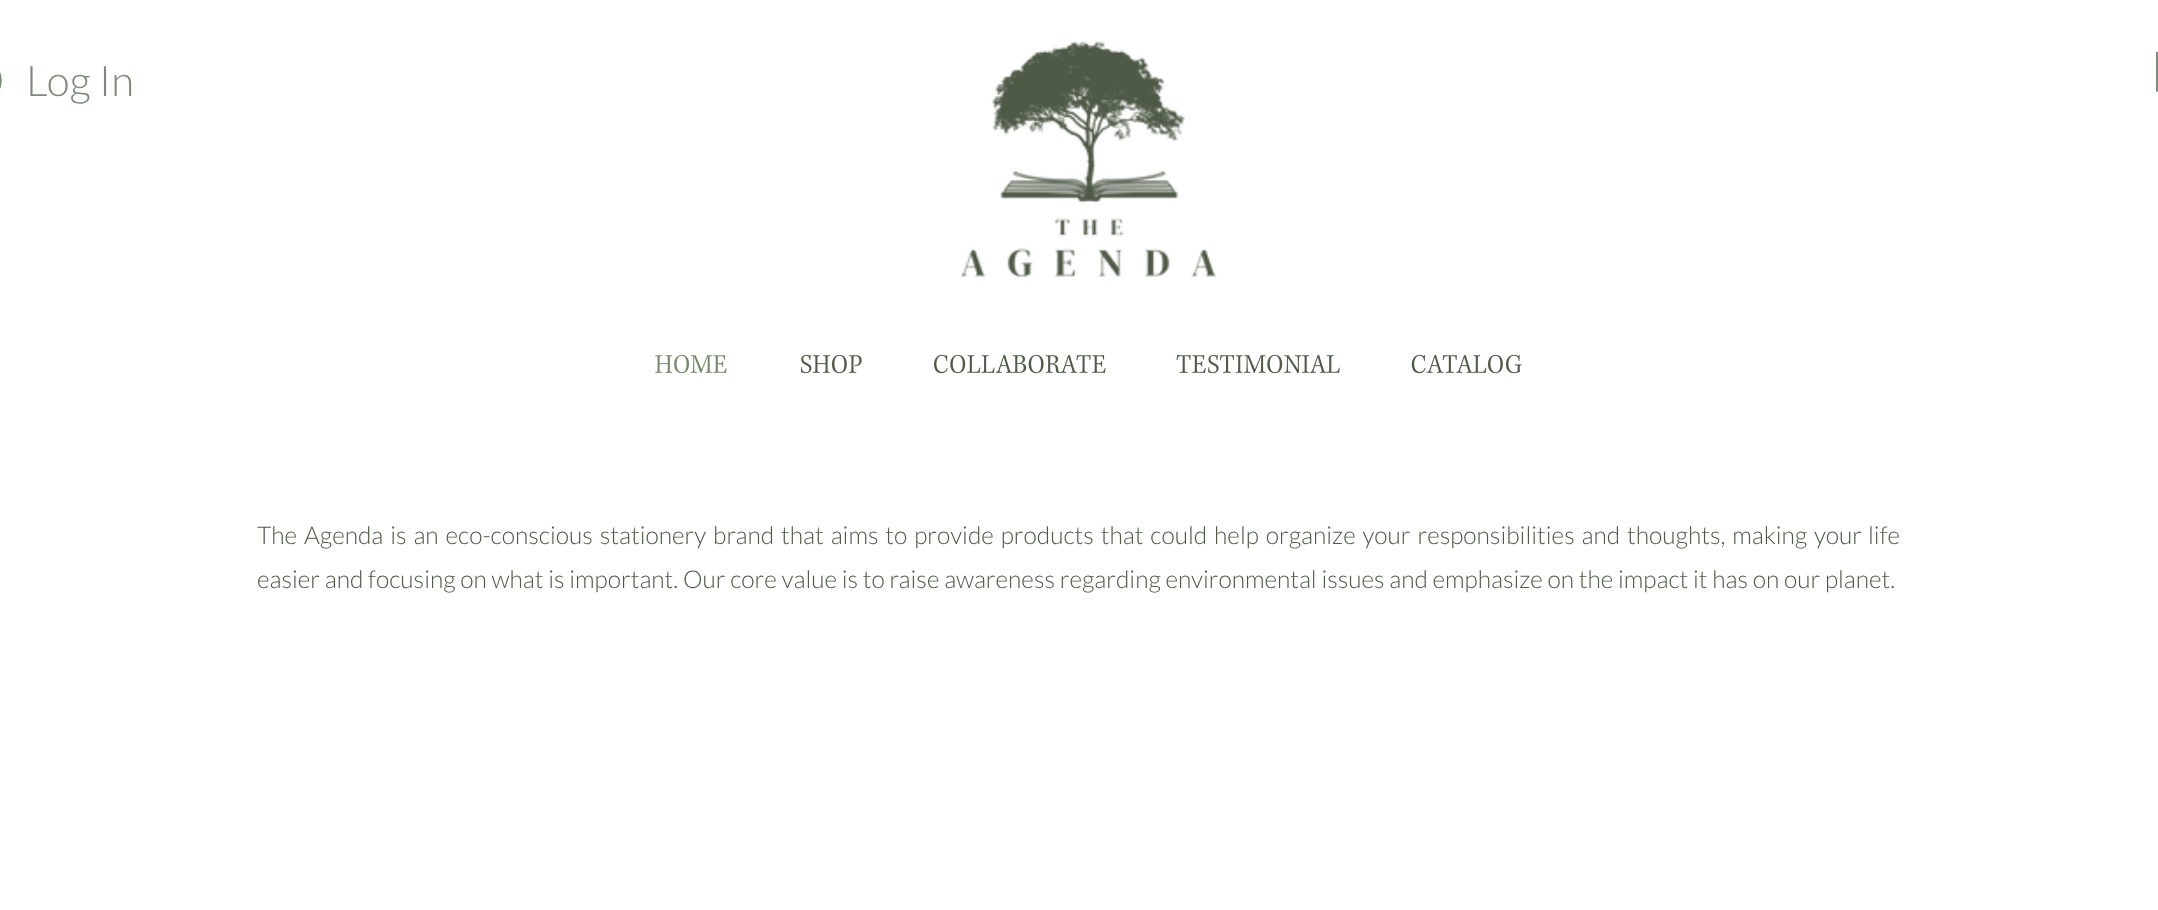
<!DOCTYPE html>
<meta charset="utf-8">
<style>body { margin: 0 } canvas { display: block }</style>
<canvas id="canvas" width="2158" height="910"></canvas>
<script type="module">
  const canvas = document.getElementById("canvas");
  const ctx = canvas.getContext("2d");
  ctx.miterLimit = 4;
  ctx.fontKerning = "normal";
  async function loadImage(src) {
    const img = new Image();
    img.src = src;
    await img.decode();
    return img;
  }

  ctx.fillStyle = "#ffffff";
  ctx.fillRect(0, 0, 2158, 910);
  ctx.drawImage(await loadImage("img1.png"), 0, 72, 2, 17);
  ctx.font = "300 42px Lato";
  ctx.fillStyle = "#7b8b79";
  ctx.fillText("Log In", 26, 96);
  ctx.drawImage(await loadImage("img2.png"), 960, 41, 257, 237);
  ctx.drawImage(await loadImage("img3.png"), 2156, 51, 2, 41);
  ctx.drawImage(await loadImage("img4.png"), 655, 354, 72, 20);
  ctx.drawImage(await loadImage("img5.png"), 800, 354, 62, 20);
  ctx.drawImage(await loadImage("img6.png"), 934, 354, 172, 20);
  ctx.drawImage(await loadImage("img7.png"), 1176, 354, 164, 20);
  ctx.drawImage(await loadImage("img8.png"), 1411, 354, 111, 20);
  ctx.wordSpacing = "2.2px";
  ctx.font = "300 24.5px Lato";
  ctx.fillStyle = "#4e5946";
  ctx.fillText("The Agenda is an eco-conscious stationery brand that aims to provide products that could help organize your responsibilities and thoughts, making your", 257, 544);
  ctx.wordSpacing = "0px";
  ctx.fillText("life", 1868, 544);
  ctx.fillText("easier and focusing on what is important. Our core value is to raise awareness regarding environmental issues and emphasize on the impact it has on our planet.", 257, 588);
</script>
